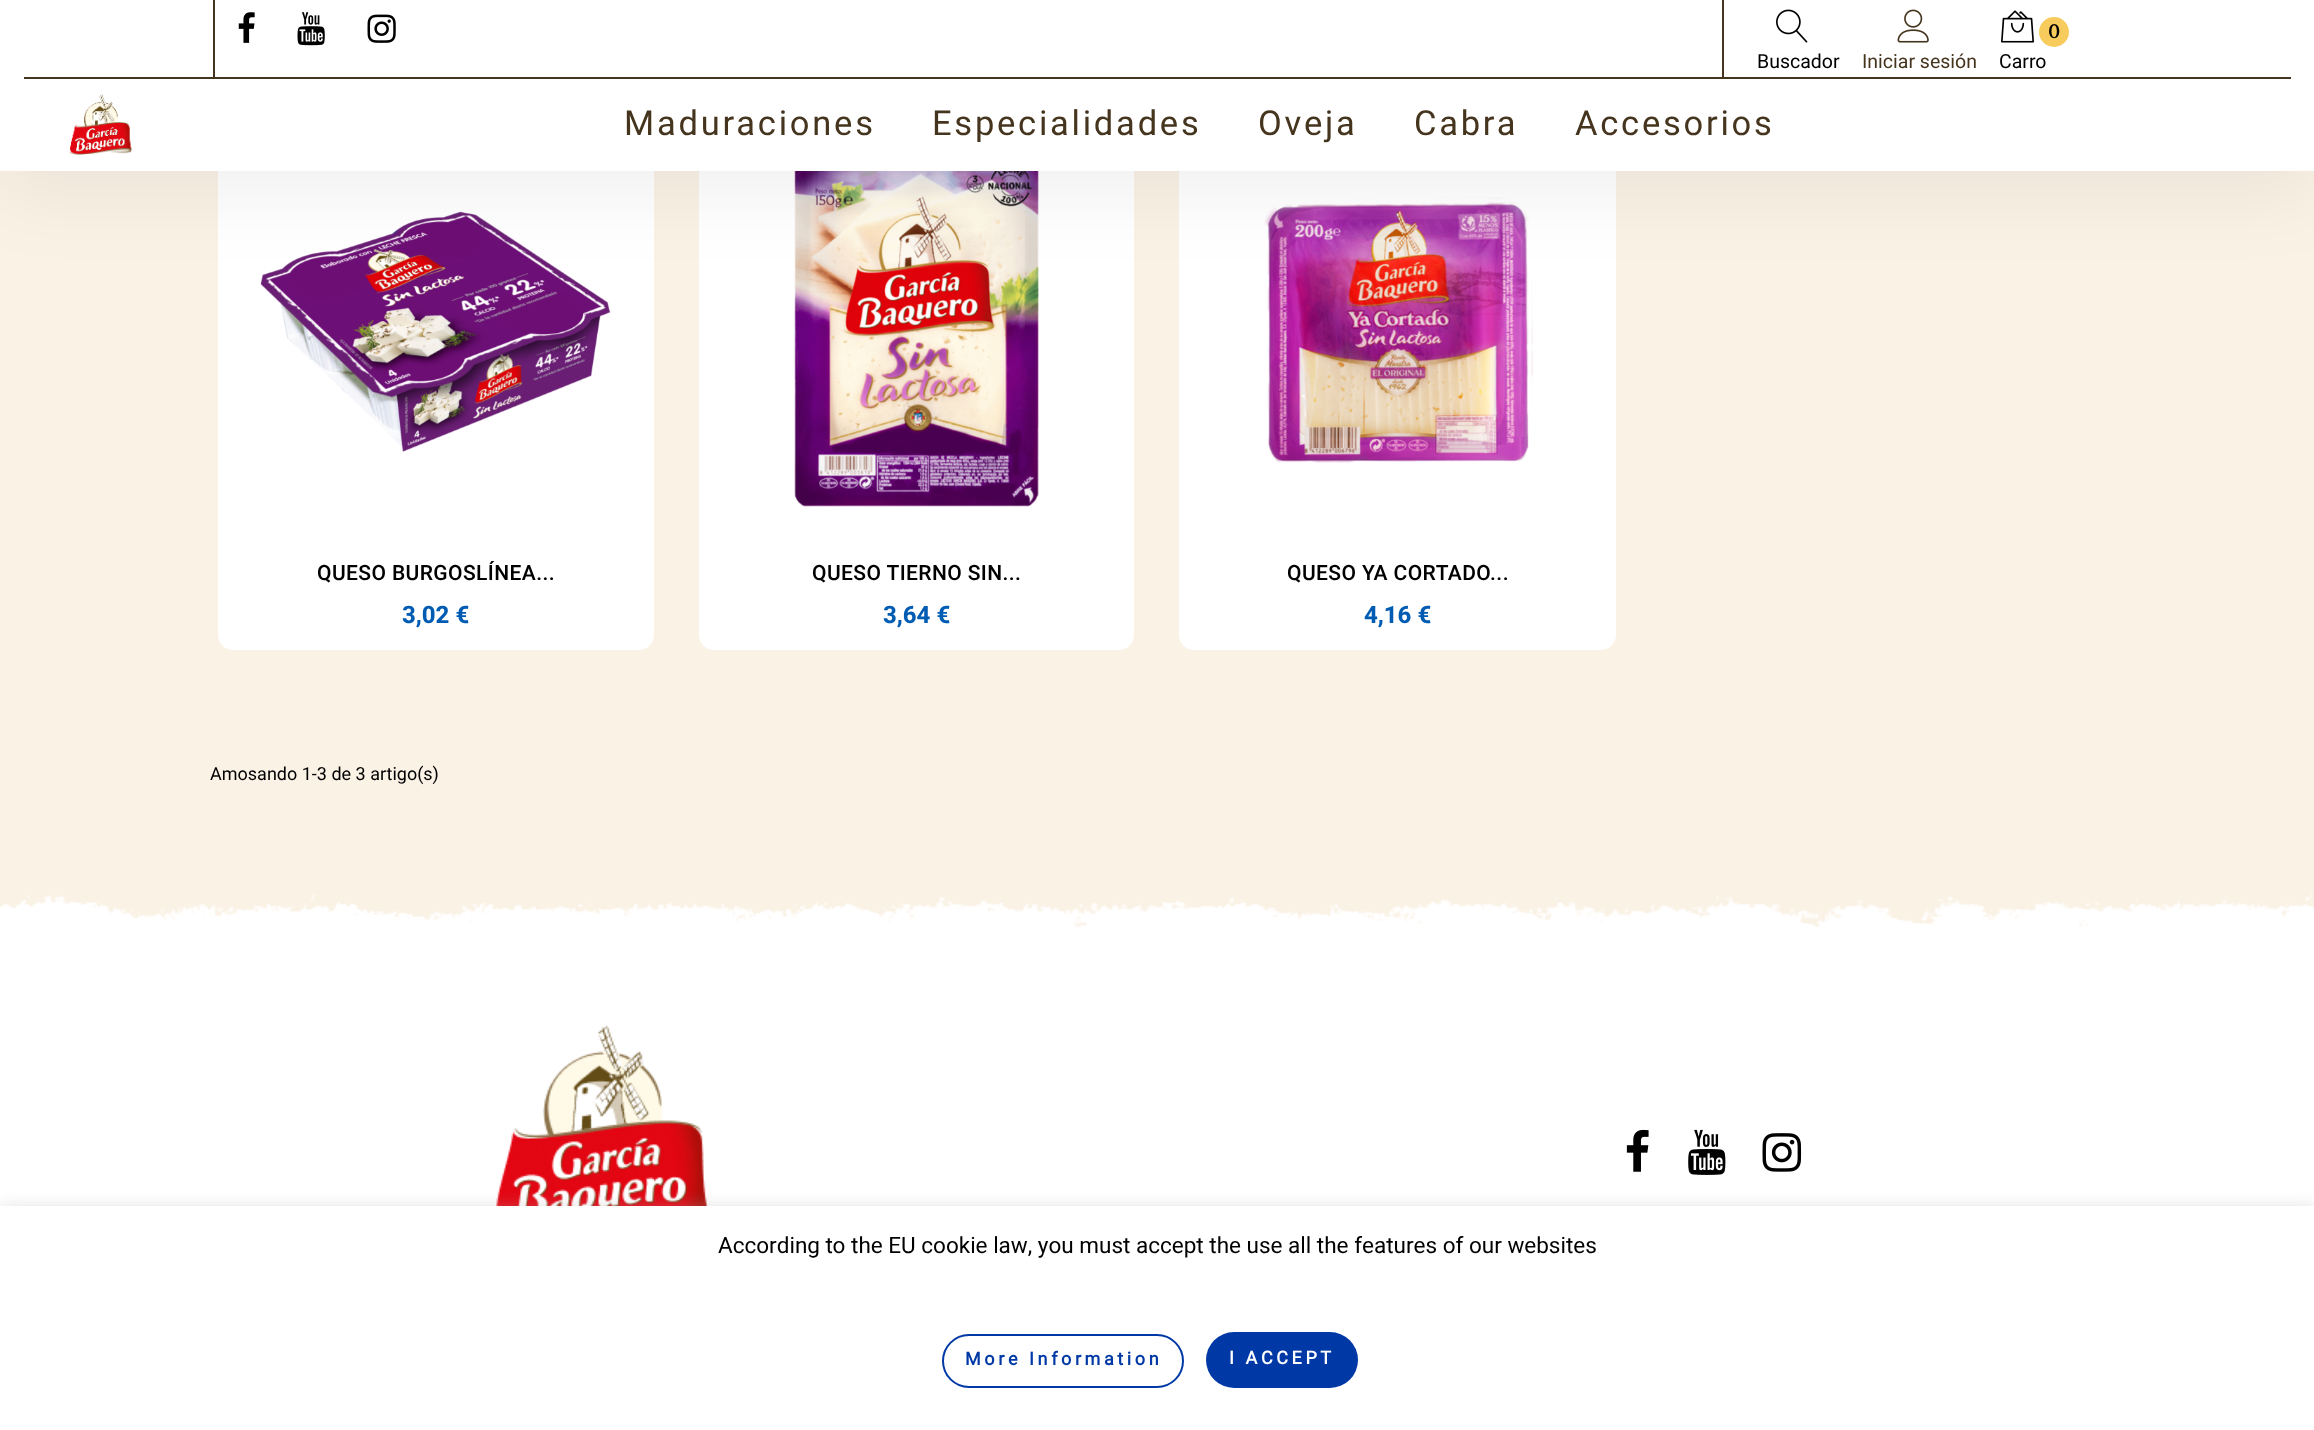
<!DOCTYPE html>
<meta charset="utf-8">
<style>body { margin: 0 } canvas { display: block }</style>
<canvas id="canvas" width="2314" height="1430"></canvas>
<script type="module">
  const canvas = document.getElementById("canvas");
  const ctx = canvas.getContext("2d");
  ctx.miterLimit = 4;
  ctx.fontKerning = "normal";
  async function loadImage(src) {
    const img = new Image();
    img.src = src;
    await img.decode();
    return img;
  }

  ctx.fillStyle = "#fbf2e6";
  ctx.fillRect(0, 0, 2314, 1430);
  ctx.fillStyle = "#ffffff";
  ctx.beginPath();
  ctx.roundRect(218, 135, 436, 515, 15);
  ctx.fill();
  ctx.drawImage(await loadImage("img8.png"), 260, 211, 351, 241);
  ctx.beginPath();
  ctx.roundRect(699, 135, 435, 515, 15);
  ctx.fill();
  ctx.drawImage(await loadImage("img9.png"), 794, 171, 245, 336);
  ctx.beginPath();
  ctx.roundRect(1179, 135, 437, 515, 15);
  ctx.fill();
  ctx.drawImage(await loadImage("img10.png"), 1264, 197, 269, 266);
  ctx.fillStyle = "rgba(0, 0, 0, 0.06)";
  ctx.filter = "blur(37.5px)";
  ctx.beginPath();
  ctx.rect(0, 23, 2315, 171);
  ctx.fill();
  ctx.filter = "none";
  ctx.fillStyle = "#ffffff";
  ctx.fillRect(0, 0, 2314, 171);
  ctx.fillStyle = "#46351e";
  ctx.fillRect(24, 77, 2267, 2);
  ctx.fillRect(1722, 0, 2, 77);
  ctx.fillRect(213, 0, 2, 77);
  ctx.drawImage(await loadImage("img1.png"), 238, 12, 17, 31);
  ctx.drawImage(await loadImage("img2.png"), 297, 12, 28, 34);
  ctx.drawImage(await loadImage("img3.png"), 367, 14, 29, 29);
  ctx.drawImage(await loadImage("img4.png"), 1776, 9, 32, 34);
  ctx.font = "19.5px Heebo";
  ctx.fillStyle = "#000000";
  ctx.fillText("Buscador", 1757, 68);
  ctx.drawImage(await loadImage("img5.png"), 1897, 9, 32, 34);
  ctx.fillStyle = "#46351e";
  ctx.fillText("Iniciar sesión", 1862, 68);
  ctx.drawImage(await loadImage("img6.png"), 2001, 10, 33, 33);
  ctx.fillStyle = "#f7cc5c";
  ctx.beginPath();
  ctx.arc(2054, 32, 15, 0, Math.PI * 2);
  ctx.fill();
  ctx.font = "19.5px Volkhov";
  ctx.fillStyle = "#000000";
  ctx.fillText("0", 2048, 38);
  ctx.font = "19.5px Heebo";
  ctx.fillText("Carro", 1999, 68);
  ctx.drawImage(await loadImage("img7.png"), 69, 94, 63, 61);
  ctx.letterSpacing = "2.75px";
  ctx.font = "34.5px Heebo";
  ctx.fillStyle = "#46351e";
  ctx.fillText("Maduraciones", 624, 135);
  ctx.fillText("Especialidades", 932, 135);
  ctx.fillText("Oveja", 1258, 135);
  ctx.fillText("Cabra", 1414, 135);
  ctx.fillText("Accesorios", 1575, 135);
  ctx.letterSpacing = "0.4px";
  ctx.font = "500 21px Heebo";
  ctx.fillStyle = "#000000";
  ctx.fillText("QUESO BURGOSLÍNEA...", 317, 580);
  ctx.letterSpacing = "0px";
  ctx.font = "bold 24px Heebo";
  ctx.fillStyle = "#005cb3";
  ctx.fillText("3,02 €", 402, 623);
  ctx.letterSpacing = "0.4px";
  ctx.font = "500 21px Heebo";
  ctx.fillStyle = "#000000";
  ctx.fillText("QUESO TIERNO SIN...", 812, 580);
  ctx.letterSpacing = "0px";
  ctx.font = "bold 24px Heebo";
  ctx.fillStyle = "#005cb3";
  ctx.fillText("3,64 €", 883, 623);
  ctx.letterSpacing = "0.4px";
  ctx.font = "500 21px Heebo";
  ctx.fillStyle = "#000000";
  ctx.fillText("QUESO YA CORTADO...", 1287, 580);
  ctx.letterSpacing = "0px";
  ctx.font = "bold 24px Heebo";
  ctx.fillStyle = "#005cb3";
  ctx.fillText("4,16 €", 1364, 623);
  ctx.font = "18px Heebo";
  ctx.fillStyle = "#000000";
  ctx.fillText("Amosando 1-3 de 3 artigo(s)", 210, 780);
  ctx.drawImage(await loadImage("img16.png"), 0, 894, 2314, 59);
  ctx.drawImage(await loadImage("img11.png"), 0, 894, 2314, 59);
  ctx.fillStyle = "#ffffff";
  ctx.fillRect(0, 953, 2314, 253);
  ctx.drawImage(await loadImage("img12.png"), 496, 1026, 212, 180);
  ctx.drawImage(await loadImage("img13.png"), 1626, 1129, 23, 43);
  ctx.drawImage(await loadImage("img14.png"), 1688, 1129, 38, 46);
  ctx.drawImage(await loadImage("img15.png"), 1762, 1133, 40, 39);
  ctx.fillStyle = "rgba(172, 171, 171, 0.3)";
  ctx.filter = "blur(7.5px)";
  ctx.beginPath();
  ctx.rect(0, 1205, 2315, 225);
  ctx.fill();
  ctx.filter = "none";
  ctx.fillStyle = "#ffffff";
  ctx.fillRect(0, 1206, 2314, 224);
  ctx.font = "22.5px Heebo";
  ctx.fillStyle = "#000000";
  ctx.fillText("According to the EU cookie law, you must accept the use all the features of our websites", 718, 1253);
  ctx.beginPath();
  ctx.roundRect(943, 1335, 240, 52, 26);
  ctx.strokeStyle = "#0039a6";
  ctx.lineWidth = 2;
  ctx.stroke();
  ctx.letterSpacing = "3.6px";
  ctx.font = "bold 18px 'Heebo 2'";
  ctx.fillStyle = "#0039a6";
  ctx.fillText("More Information", 965, 1365);
  ctx.beginPath();
  ctx.roundRect(1206, 1332, 152, 56, 28);
  ctx.fill();
  ctx.fillStyle = "#ffffff";
  ctx.fillText("I ACCEPT", 1229, 1364);
</script>
